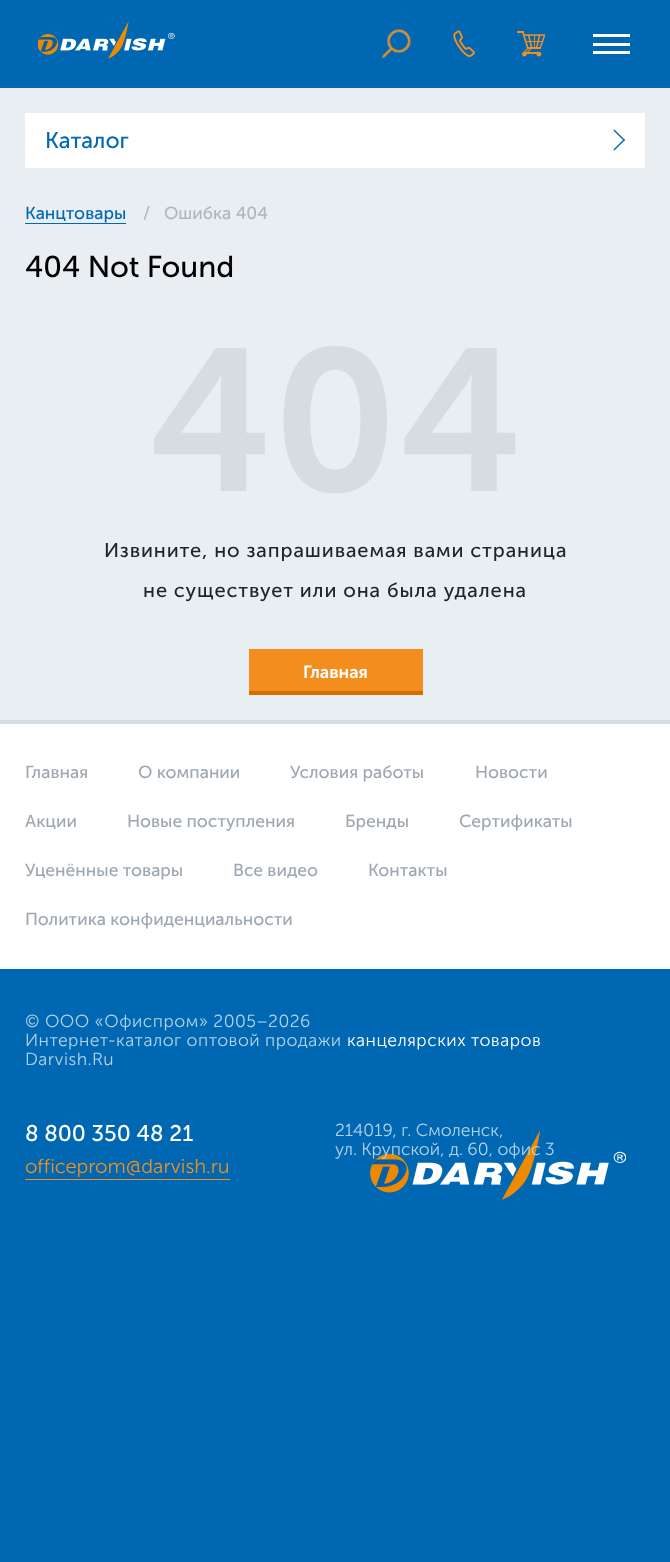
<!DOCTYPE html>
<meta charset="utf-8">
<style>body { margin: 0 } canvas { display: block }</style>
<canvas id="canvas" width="670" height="1562"></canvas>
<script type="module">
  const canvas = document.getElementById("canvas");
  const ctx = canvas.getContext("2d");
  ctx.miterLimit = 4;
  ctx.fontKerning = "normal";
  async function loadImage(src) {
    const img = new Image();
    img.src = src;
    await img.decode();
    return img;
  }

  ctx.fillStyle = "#0068b3";
  ctx.fillRect(0, 0, 670, 1562);
  ctx.drawImage(await loadImage("img1.png"), 38, 21, 137, 38);
  ctx.drawImage(await loadImage("img2.png"), 381, 28, 31, 31);
  ctx.drawImage(await loadImage("img3.png"), 453, 30, 22, 27);
  ctx.drawImage(await loadImage("img4.png"), 517, 31, 29, 26);
  ctx.fillStyle = "#ffffff";
  ctx.fillRect(593, 43, 37, 3);
  ctx.fillRect(593, 34, 37, 3);
  ctx.fillRect(593, 51, 37, 3);
  ctx.fillStyle = "#e9eef2";
  ctx.fillRect(0, 88, 670, 632);
  ctx.fillStyle = "#ffffff";
  ctx.fillRect(25, 113, 620, 55);
  ctx.font = "22.5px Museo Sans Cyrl";
  ctx.fillStyle = "#0168b4";
  ctx.fillText("Каталог", 45, 148);
  ctx.beginPath();
  ctx.moveTo(614.5, 129.5);
  ctx.lineTo(625, 140);
  ctx.lineTo(624, 141);
  ctx.lineTo(613.5, 130.5);
  ctx.closePath();
  ctx.fill();
  ctx.beginPath();
  ctx.moveTo(624, 139);
  ctx.lineTo(625, 140);
  ctx.lineTo(614.5, 150.5);
  ctx.lineTo(613.5, 149.5);
  ctx.closePath();
  ctx.fill();
  ctx.font = "17.5px Museo Sans Cyrl";
  ctx.fillText("Канцтовары", 25, 219);
  ctx.fillStyle = "#0068b3";
  ctx.fillRect(25, 223, 101, 1);
  ctx.fillStyle = "#adb7bf";
  ctx.fillText("/", 143, 219);
  ctx.fillText("Ошибка 404", 164, 219);
  ctx.font = "30px Museo Sans Cyrl";
  ctx.fillStyle = "#000000";
  ctx.fillText("404 Not Found", 25, 277);
  ctx.font = "600 201px Museo Sans Cyrl";
  ctx.fillStyle = "#d5dde3";
  ctx.fillText("404", 148, 491);
  ctx.letterSpacing = "0.9px";
  ctx.font = "20px Museo Sans Cyrl";
  ctx.fillStyle = "#1f2428";
  ctx.fillText("Извините, но запрашиваемая вами страница", 104, 557);
  ctx.fillText("не существует или она была удалена", 143, 597);
  ctx.fillStyle = "#f28d1e";
  ctx.fillRect(249, 649, 174, 42);
  ctx.fillStyle = "#d36e00";
  ctx.fillRect(249, 691, 174, 4);
  ctx.letterSpacing = "0px";
  ctx.font = "600 17.5px Museo Sans Cyrl";
  ctx.fillStyle = "#ffffff";
  ctx.fillText("Главная", 303, 678);
  ctx.fillStyle = "#d5dde3";
  ctx.fillRect(0, 720, 670, 4);
  ctx.fillStyle = "#ffffff";
  ctx.fillRect(0, 724, 670, 245);
  ctx.font = "17.5px Museo Sans Cyrl";
  ctx.fillStyle = "#9ea8b1";
  ctx.fillText("Главная", 25, 778);
  ctx.fillText("О компании", 138, 778);
  ctx.fillText("Условия работы", 290, 778);
  ctx.fillText("Новости", 475, 778);
  ctx.fillText("Акции", 25, 827);
  ctx.fillText("Новые поступления", 127, 827);
  ctx.fillText("Бренды", 345, 827);
  ctx.fillText("Сертификаты", 459, 827);
  ctx.fillText("Уценённые товары", 25, 876);
  ctx.fillText("Все видео", 233, 876);
  ctx.fillText("Контакты", 368, 876);
  ctx.fillText("Политика конфиденциальности", 25, 925);
  ctx.letterSpacing = "0.5px";
  ctx.font = "300 17.5px Museo Sans Cyrl";
  ctx.fillStyle = "#b3d2e8";
  ctx.fillText("© ООО «Офиспром» 2005–2026", 25, 1027);
  ctx.fillText("Интернет-каталог оптовой продажи", 25, 1046);
  ctx.fillStyle = "#ffffff";
  ctx.fillText("канцелярских товаров", 347, 1046);
  ctx.fillStyle = "#b3d2e8";
  ctx.fillText("Darvish.Ru", 25, 1065);
  ctx.letterSpacing = "0px";
  ctx.font = "22.5px Museo Sans Cyrl";
  ctx.fillStyle = "#ffffff";
  ctx.fillText("8 800 350 48 21", 25, 1141);
  ctx.fillStyle = "#f28d1e";
  ctx.fillRect(25, 1179, 205, 1);
  ctx.font = "300 20px Museo Sans Cyrl";
  ctx.fillText("officeprom@darvish.ru", 25, 1173);
  ctx.drawImage(await loadImage("img5.png"), 370, 1130, 256, 70);
  ctx.font = "300 17.5px Museo Sans Cyrl";
  ctx.fillStyle = "#b3d2e8";
  ctx.fillText("214019, г. Смоленск,", 335, 1136);
  ctx.fillText("ул. Крупской, д. 60, офис 3", 335, 1155);
</script>
